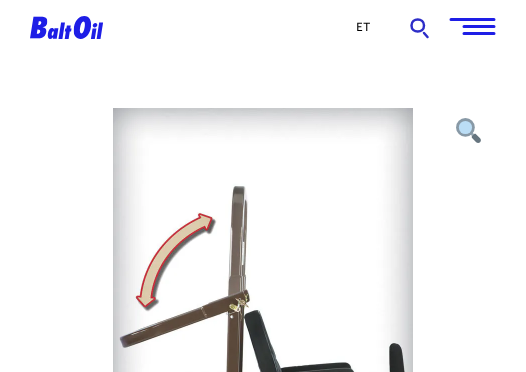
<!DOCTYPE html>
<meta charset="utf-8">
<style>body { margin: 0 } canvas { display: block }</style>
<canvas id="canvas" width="526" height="372"></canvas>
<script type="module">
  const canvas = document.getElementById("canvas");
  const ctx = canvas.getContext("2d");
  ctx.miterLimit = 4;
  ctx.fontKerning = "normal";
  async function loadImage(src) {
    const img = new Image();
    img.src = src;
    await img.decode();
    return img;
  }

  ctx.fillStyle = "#ffffff";
  ctx.fillRect(0, 0, 526, 372);
  ctx.drawImage(await loadImage("img1.png"), 30, 16, 73, 23);
  ctx.letterSpacing = "1px";
  ctx.font = "12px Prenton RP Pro";
  ctx.fillStyle = "#000000";
  ctx.fillText("ET", 356, 31);
  ctx.beginPath();
  ctx.moveTo(424, 25.5);
  ctx.bezierCurveTo(424, 33.5, 411.5, 33.5, 411.5, 25.5);
  ctx.bezierCurveTo(411.5, 17.5, 424, 17.5, 424, 25.5);
  ctx.closePath();
  ctx.strokeStyle = "#2d2dc8";
  ctx.lineWidth = 2.5;
  ctx.stroke();
  ctx.beginPath();
  ctx.moveTo(424, 33);
  ctx.lineTo(427.5, 37);
  ctx.lineCap = "round";
  ctx.lineJoin = "round";
  ctx.stroke();
  ctx.beginPath();
  ctx.moveTo(494, 19.5);
  ctx.lineTo(451, 19.5);
  ctx.moveTo(494, 26.5);
  ctx.lineTo(464, 26.5);
  ctx.moveTo(494, 33.5);
  ctx.lineTo(464, 33.5);
  ctx.strokeStyle = "#1e1ee6";
  ctx.lineWidth = 3;
  ctx.lineJoin = "miter";
  ctx.stroke();
  ctx.drawImage(await loadImage("img2.png"), 113, 108, 300, 264);
  ctx.drawImage(await loadImage("img3.png"), 456, 118, 25, 25);
</script>
